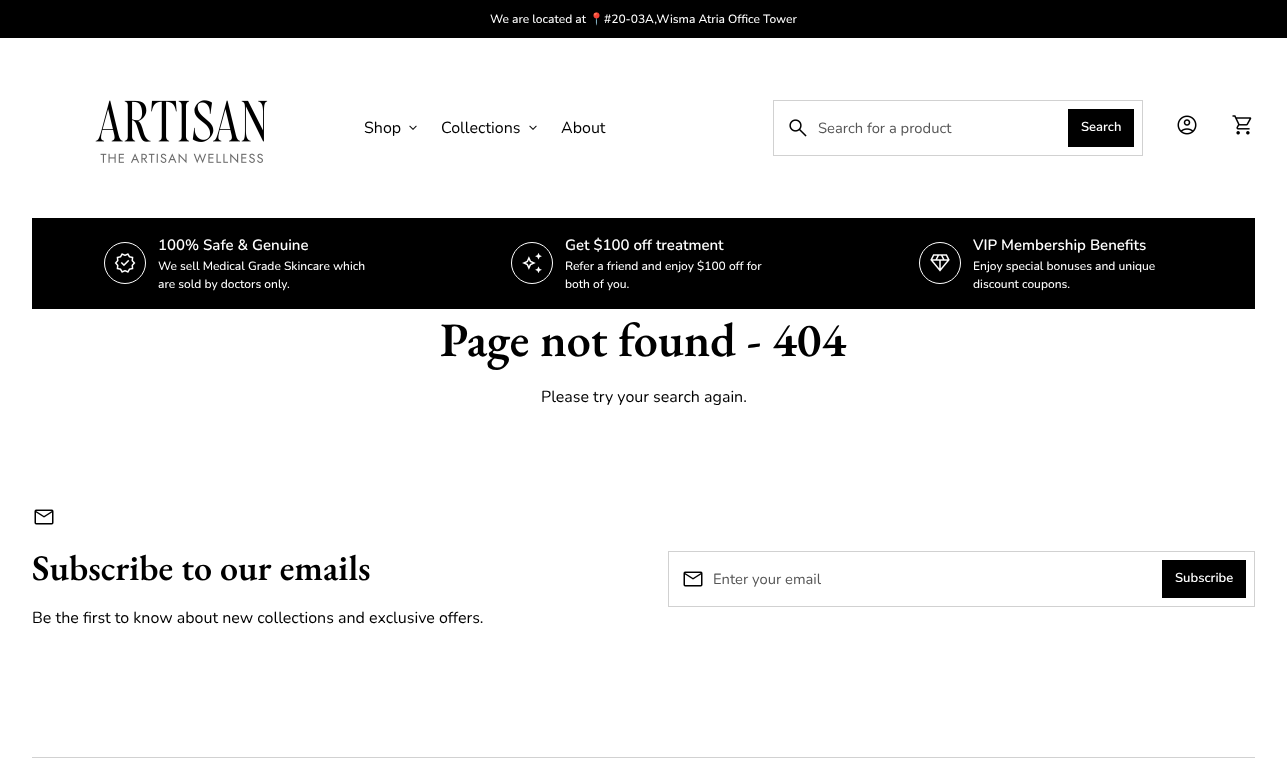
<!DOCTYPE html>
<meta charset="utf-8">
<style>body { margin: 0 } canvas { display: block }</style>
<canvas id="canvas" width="1287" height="781"></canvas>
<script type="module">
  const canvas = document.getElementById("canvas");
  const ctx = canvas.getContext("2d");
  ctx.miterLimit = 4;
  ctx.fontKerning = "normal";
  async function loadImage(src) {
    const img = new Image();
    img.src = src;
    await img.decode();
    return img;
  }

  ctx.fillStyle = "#ffffff";
  ctx.fillRect(0, 0, 1287, 781);
  ctx.fillStyle = "#000000";
  ctx.fillRect(0, 0, 1287, 38);
  ctx.font = "500 12px Nunito";
  ctx.fillStyle = "#ffffff";
  ctx.fillText("We are located at", 490, 23);
  ctx.font = "12px Noto Color Emoji";
  ctx.fillText("📍", 589, 23);
  ctx.font = "500 12px Nunito";
  ctx.fillText("#20-03A,Wisma Atria Office Tower", 604, 23);
  ctx.drawImage(await loadImage("img1.png"), 95, 100, 173, 64);
  ctx.font = "16px Nunito";
  ctx.fillStyle = "#000000";
  ctx.fillText("Shop", 364, 133);
  ctx.drawImage(await loadImage("img2.png"), 409, 125, 8, 5);
  ctx.fillText("Collections", 441, 133);
  ctx.drawImage(await loadImage("img2.png"), 529, 125, 8, 5);
  ctx.fillText("About", 561, 133);
  ctx.strokeStyle = "#d1d1d1";
  ctx.strokeRect(773.5, 100.5, 369, 55);
  ctx.drawImage(await loadImage("img3.png"), 789, 119, 18, 18);
  ctx.font = "14.75px Nunito";
  ctx.fillStyle = "#565656";
  ctx.fillText("Search for a product", 818, 133);
  ctx.fillStyle = "#000000";
  ctx.fillRect(1068, 109, 66, 38);
  ctx.font = "600 13px Nunito";
  ctx.fillStyle = "#ffffff";
  ctx.fillText("Search", 1081, 131);
  ctx.drawImage(await loadImage("img4.png"), 1177, 115, 20, 20);
  ctx.drawImage(await loadImage("img5.png"), 1232, 115, 20, 20);
  ctx.fillStyle = "#000000";
  ctx.fillRect(32, 218, 1223, 91);
  ctx.beginPath();
  ctx.arc(125, 263, 20.5, 0, Math.PI * 2);
  ctx.strokeStyle = "#ffffff";
  ctx.stroke();
  ctx.drawImage(await loadImage("img6.png"), 114, 253, 22, 20);
  ctx.font = "600 15px Nunito";
  ctx.fillStyle = "#ffffff";
  ctx.fillText("100% Safe & Genuine", 158, 250);
  ctx.font = "500 12px Nunito";
  ctx.fillText("We sell Medical Grade Skincare which", 158, 270);
  ctx.fillText("are sold by doctors only.", 158, 288);
  ctx.beginPath();
  ctx.arc(532, 263, 20.5, 0, Math.PI * 2);
  ctx.stroke();
  ctx.drawImage(await loadImage("img7.png"), 522, 253, 20, 20);
  ctx.font = "600 15px Nunito";
  ctx.fillText("Get $100 off treatment", 565, 250);
  ctx.font = "500 12px Nunito";
  ctx.fillText("Refer a friend and enjoy $100 off for", 565, 270);
  ctx.fillText("both of you.", 565, 288);
  ctx.beginPath();
  ctx.arc(940, 263, 20.5, 0, Math.PI * 2);
  ctx.stroke();
  ctx.drawImage(await loadImage("img8.png"), 930, 254, 20, 18);
  ctx.font = "600 15px Nunito";
  ctx.fillText("VIP Membership Benefits", 973, 250);
  ctx.font = "500 12px Nunito";
  ctx.fillText("Enjoy special bonuses and unique", 973, 270);
  ctx.fillText("discount coupons.", 973, 288);
  ctx.font = "600 48px EB Garamond";
  ctx.fillStyle = "#000000";
  ctx.fillText("Page not found - 404", 440, 356);
  ctx.font = "16px Nunito";
  ctx.fillText("Please try your search again.", 541, 402);
  ctx.drawImage(await loadImage("img9.png"), 34, 509, 20, 16);
  ctx.font = "600 36px EB Garamond";
  ctx.fillText("Subscribe to our emails", 32, 580);
  ctx.font = "16px Nunito";
  ctx.fillText("Be the first to know about new collections and exclusive offers.", 32, 623);
  ctx.strokeStyle = "#d1d1d1";
  ctx.strokeRect(668.5, 551.5, 586, 55);
  ctx.drawImage(await loadImage("img9.png"), 683, 571, 20, 16);
  ctx.font = "14.75px Nunito";
  ctx.fillStyle = "#565656";
  ctx.fillText("Enter your email", 713, 584);
  ctx.fillStyle = "#000000";
  ctx.fillRect(1162, 560, 84, 38);
  ctx.font = "600 13px Nunito";
  ctx.fillStyle = "#ffffff";
  ctx.fillText("Subscribe", 1175, 582);
  ctx.fillStyle = "#d1d1d1";
  ctx.fillRect(32, 757, 1223, 1);
</script>
